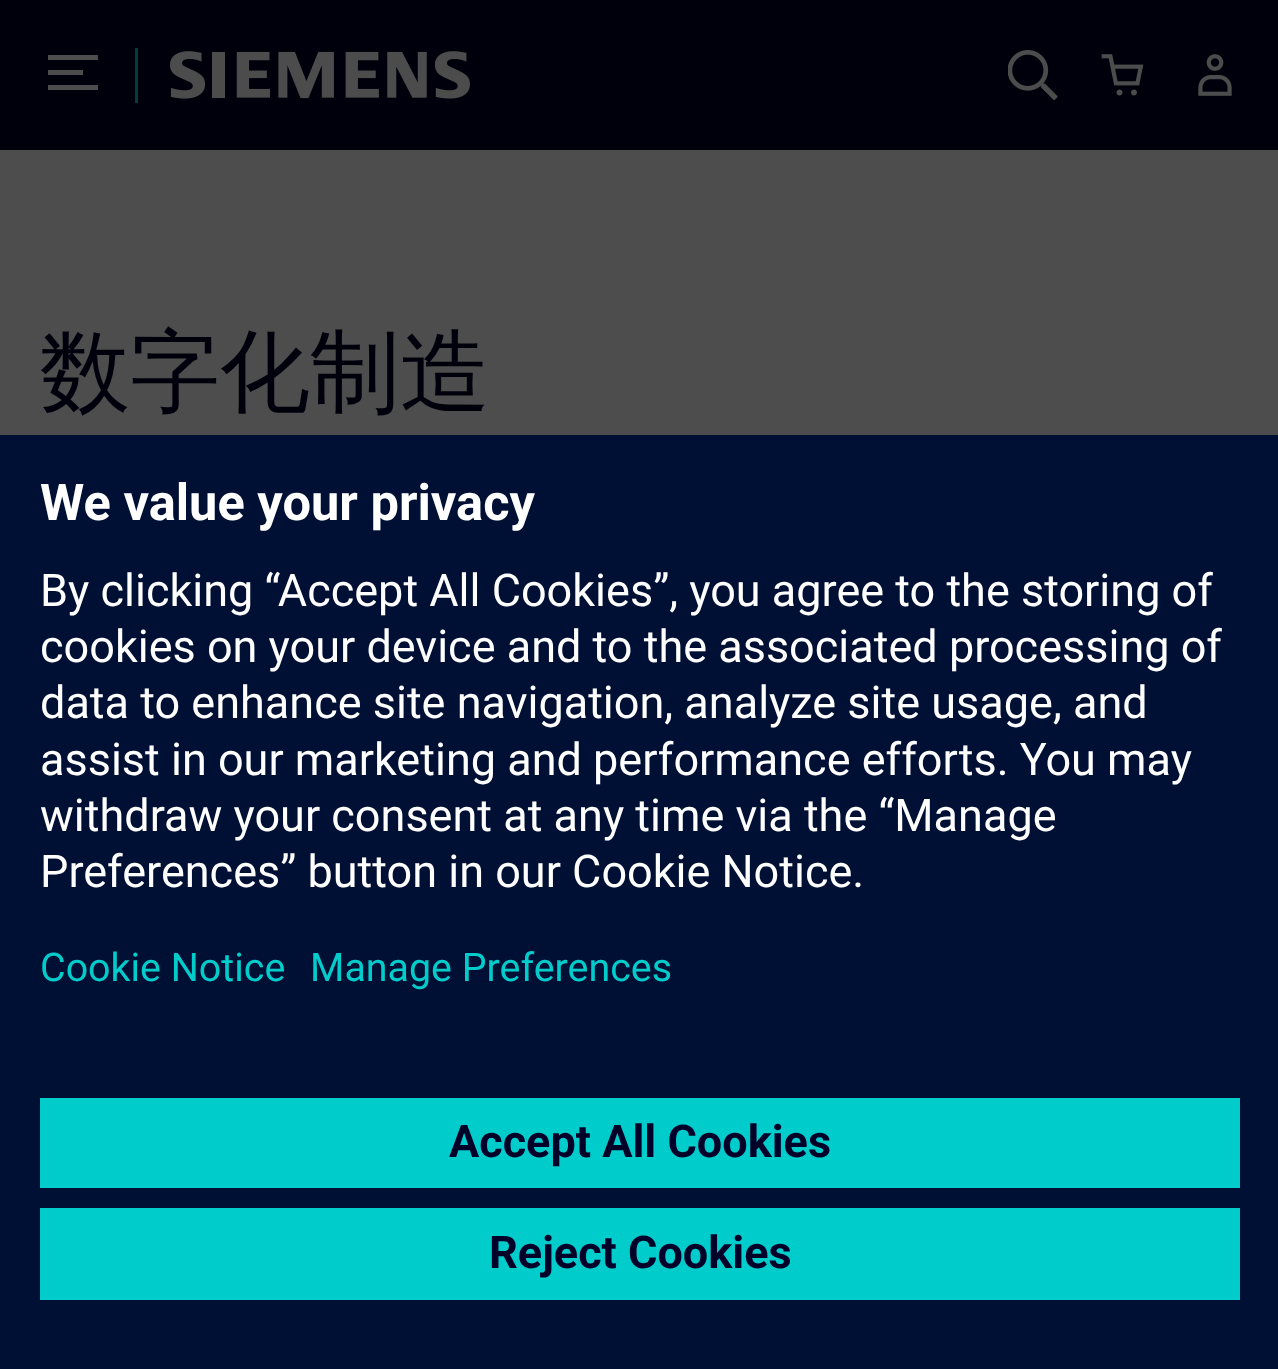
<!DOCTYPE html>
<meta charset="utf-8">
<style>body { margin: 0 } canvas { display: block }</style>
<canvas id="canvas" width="1278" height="1369"></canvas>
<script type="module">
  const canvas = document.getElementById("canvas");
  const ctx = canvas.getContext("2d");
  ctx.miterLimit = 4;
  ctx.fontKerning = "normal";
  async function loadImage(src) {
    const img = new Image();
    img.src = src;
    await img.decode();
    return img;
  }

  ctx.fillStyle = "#4d4d4d";
  ctx.fillRect(0, 0, 1278, 1369);
  ctx.fillStyle = "#00000c";
  ctx.fillRect(0, 0, 1278, 150);
  ctx.fillStyle = "#4d4d4d";
  ctx.fillRect(48, 70, 35, 5);
  ctx.fillRect(48, 55, 50, 5);
  ctx.fillRect(48, 85, 50, 5);
  ctx.fillStyle = "#003d3d";
  ctx.fillRect(135, 48, 3, 55);
  ctx.drawImage(await loadImage("img1.png"), 170, 51, 300, 48);
  ctx.drawImage(await loadImage("img2.png"), 1008, 50, 50, 50);
  ctx.drawImage(await loadImage("img3.png"), 1101, 54, 43, 42);
  ctx.drawImage(await loadImage("img4.png"), 1198, 54, 34, 42);
  ctx.font = "500 90px WenQuanYi Zen Hei";
  ctx.fillStyle = "#00000c";
  ctx.fillText("数字化制造", 40, 403);
  ctx.fillStyle = "#001034";
  ctx.fillRect(0, 435, 1278, 934);
  ctx.font = "bold 50.6px Roboto";
  ctx.fillStyle = "#ffffff";
  ctx.fillText("We value your privacy", 40, 520);
  ctx.font = "45px Roboto";
  ctx.fillText("By clicking “Accept All Cookies”, you agree to the storing of", 40, 606);
  ctx.fillText("cookies on your device and to the associated processing of", 40, 662);
  ctx.fillText("data to enhance site navigation, analyze site usage, and", 40, 718);
  ctx.fillText("assist in our marketing and performance efforts. You may", 40, 775);
  ctx.fillText("withdraw your consent at any time via the “Manage", 40, 831);
  ctx.fillText("Preferences” button in our Cookie Notice.", 40, 887);
  ctx.font = "39.4px Roboto";
  ctx.fillStyle = "#00cccc";
  ctx.fillText("Cookie Notice", 40, 981);
  ctx.fillText("Manage Preferences", 310, 981);
  ctx.fillRect(40, 1098, 1200, 90);
  ctx.font = "bold 45px Roboto";
  ctx.fillStyle = "#000028";
  ctx.fillText("Accept All Cookies", 449, 1157);
  ctx.fillStyle = "#00cccc";
  ctx.fillRect(40, 1208, 1200, 92);
  ctx.fillStyle = "#000028";
  ctx.fillText("Reject Cookies", 489, 1268);
</script>
